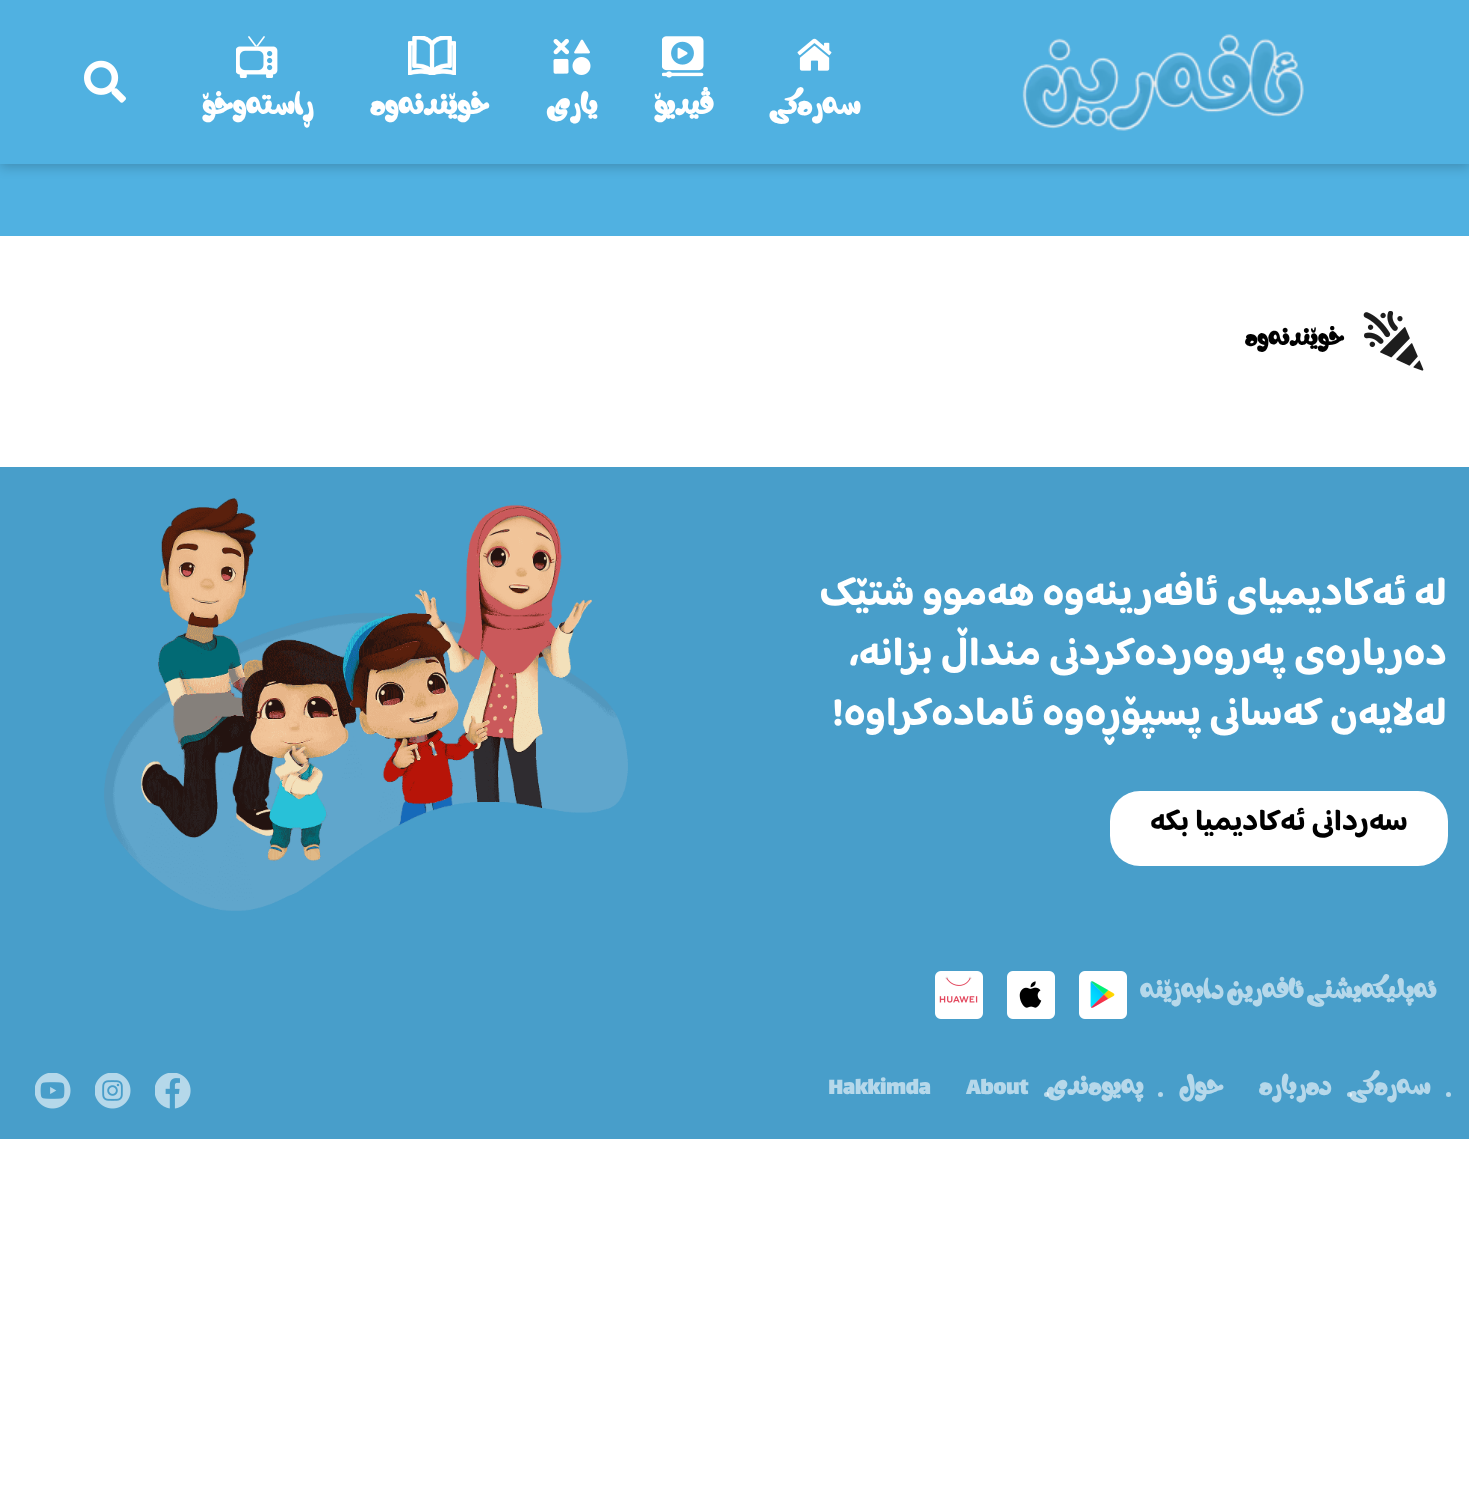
<!DOCTYPE html>
<meta charset="utf-8">
<style>body { margin: 0 } canvas { display: block }</style>
<canvas id="canvas" width="1469" height="1499"></canvas>
<script type="module">
  const canvas = document.getElementById("canvas");
  const ctx = canvas.getContext("2d");
  ctx.miterLimit = 4;
  ctx.fontKerning = "normal";
  async function loadImage(src) {
    const img = new Image();
    img.src = src;
    await img.decode();
    return img;
  }

  ctx.fillStyle = "#ffffff";
  ctx.fillRect(0, 0, 1469, 1499);
  ctx.fillStyle = "#50b1e1";
  ctx.fillRect(0, 0, 1469, 236);
  ctx.save();
  ctx.beginPath();
  ctx.moveTo(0, 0);
  ctx.lineTo(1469, 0);
  ctx.lineTo(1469, 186);
  ctx.lineTo(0, 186);
  ctx.closePath();
  ctx.moveTo(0, 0);
  ctx.lineTo(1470, 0);
  ctx.lineTo(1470, 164);
  ctx.lineTo(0, 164);
  ctx.closePath();
  ctx.clip("evenodd");
  ctx.fillStyle = "rgba(0, 0, 0, 0.2)";
  ctx.filter = "blur(6px)";
  ctx.beginPath();
  ctx.rect(0, 3, 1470, 164);
  ctx.fill();
  ctx.filter = "none";
  ctx.restore();
  ctx.drawImage(await loadImage("img1.png"), 1022, 34, 282, 97);
  ctx.drawImage(await loadImage("img2.png"), 84, 60, 42, 43);
  ctx.drawImage(await loadImage("img3.png"), 797, 38, 35, 33);
  ctx.direction = "rtl";
  ctx.font = "bold 27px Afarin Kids";
  ctx.fillStyle = "#ffffff";
  ctx.fillText("سەرەکی", 860, 114);
  ctx.drawImage(await loadImage("img4.png"), 662, 36, 42, 42);
  ctx.fillText("ڤیدیۆ", 713, 114);
  ctx.drawImage(await loadImage("img5.png"), 553, 38, 38, 37);
  ctx.fillText("یاری", 597, 114);
  ctx.drawImage(await loadImage("img6.png"), 408, 36, 48, 39);
  ctx.fillText("خوێندنەوە", 489, 114);
  ctx.drawImage(await loadImage("img7.png"), 236, 36, 42, 42);
  ctx.fillText("ڕاستەوخۆ", 313, 114);
  ctx.drawImage(await loadImage("img8.png"), 1363, 311, 61, 60);
  ctx.font = "bold 22.5px Afarin Kids";
  ctx.fillStyle = "#000000";
  ctx.fillText("خوێندنەوە", 1344, 345);
  ctx.fillStyle = "#489eca";
  ctx.fillRect(0, 467, 1469, 672);
  ctx.font = "bold 40.5px '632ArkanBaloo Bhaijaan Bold'";
  ctx.fillStyle = "#ffffff";
  ctx.fillText("لە ئەکادیمیای ئافەرینەوە هەموو شتێک", 1447, 605);
  ctx.fillText("دەربارەی پەروەردەکردنی منداڵ بزانە،", 1447, 665);
  ctx.fillText("لەلایەن کەسانی پسپۆڕەوە ئامادەکراوە!", 1447, 725);
  ctx.beginPath();
  ctx.roundRect(1110, 791, 338, 75, 30);
  ctx.fill();
  ctx.font = "bold 30px '632ArkanBaloo Bhaijaan Bold'";
  ctx.fillStyle = "#000000";
  ctx.fillText("سەردانی ئەکادیمیا بکە", 1408, 830);
  ctx.drawImage(await loadImage("img9.png"), 104, 498, 524, 413);
  ctx.font = "bold 24px Afarin Kids";
  ctx.fillStyle = "#b6d8ea";
  ctx.fillText("ئەپلیکەیشنی ئافەرین دابەزێنە", 1436, 998);
  ctx.drawImage(await loadImage("img10.png"), 1079, 971, 48, 48);
  ctx.drawImage(await loadImage("img11.png"), 1007, 971, 48, 48);
  ctx.drawImage(await loadImage("img12.png"), 935, 971, 48, 48);
  ctx.beginPath();
  ctx.arc(1448.5, 1094.5, 2.5, 0, Math.PI * 2);
  ctx.fill();
  ctx.fillText("سەرەکی", 1430, 1094);
  ctx.fillStyle = "rgba(255, 255, 255, 0.6)";
  ctx.beginPath();
  ctx.arc(1349.5, 1094.5, 2.5, 0, Math.PI * 2);
  ctx.fill();
  ctx.fillStyle = "#b6d8ea";
  ctx.fillText("دەربارە", 1331, 1094);
  ctx.fillText("حول", 1223, 1094);
  ctx.beginPath();
  ctx.arc(1160.5, 1094.5, 2.5, 0, Math.PI * 2);
  ctx.fill();
  ctx.fillText("پەیوەندی", 1143, 1094);
  ctx.fillStyle = "rgba(255, 255, 255, 0.6)";
  ctx.beginPath();
  ctx.arc(1046.5, 1094.5, 2.5, 0, Math.PI * 2);
  ctx.fill();
  ctx.direction = "ltr";
  ctx.fillStyle = "#b6d8ea";
  ctx.fillText("About", 966, 1094);
  ctx.fillText("Hakkimda", 828, 1094);
  ctx.drawImage(await loadImage("img13.png"), 155, 1073, 36, 36);
  ctx.drawImage(await loadImage("img14.png"), 95, 1073, 36, 36);
  ctx.drawImage(await loadImage("img15.png"), 35, 1073, 36, 36);
</script>
